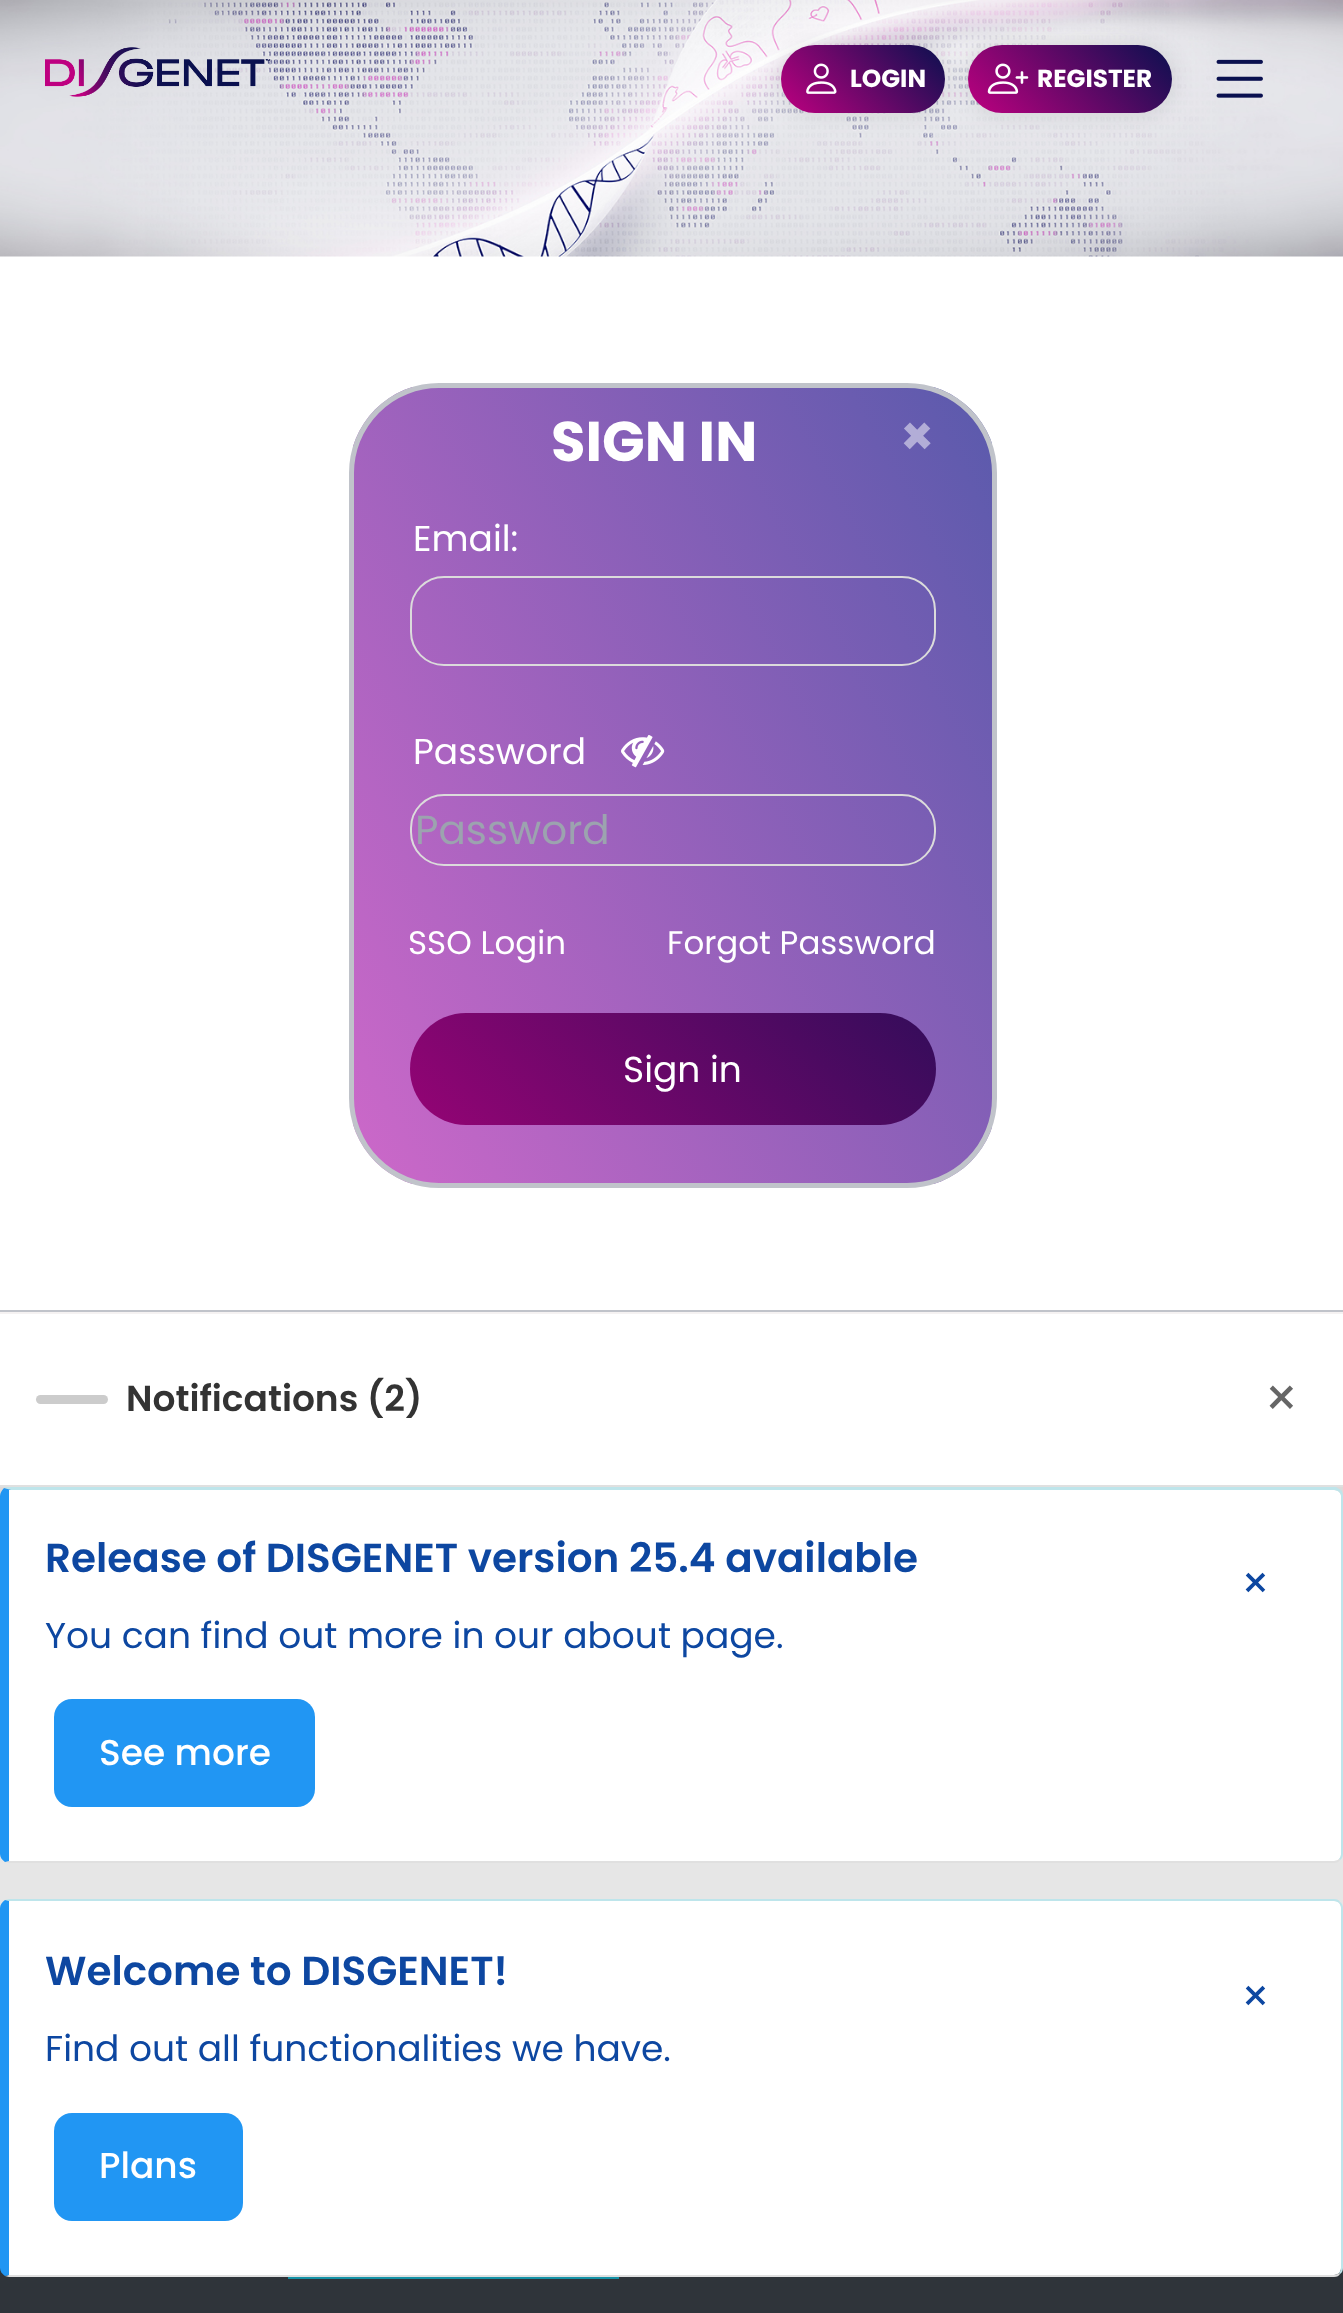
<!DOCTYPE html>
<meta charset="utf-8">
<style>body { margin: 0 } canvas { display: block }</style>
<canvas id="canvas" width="1343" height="2313"></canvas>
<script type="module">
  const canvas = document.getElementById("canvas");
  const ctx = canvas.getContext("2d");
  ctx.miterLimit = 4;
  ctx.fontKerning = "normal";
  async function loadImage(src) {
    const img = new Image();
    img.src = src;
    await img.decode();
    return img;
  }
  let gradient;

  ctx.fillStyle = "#ffffff";
  ctx.fillRect(0, 0, 1343, 2313);
  ctx.fillStyle = "#e6e6e6";
  ctx.fillRect(0, 1854, 1343, 54);
  ctx.drawImage(await loadImage("img1.png"), 0, 0, 1343, 257);
  ctx.drawImage(await loadImage("img2.png"), 45, 47, 225, 50);
  ctx.fillStyle = "rgba(0, 0, 0, 0.1)";
  ctx.filter = "blur(11px)";
  ctx.beginPath();
  ctx.roundRect(781, 45, 164, 68, 34);
  ctx.fill();
  ctx.filter = "none";
  gradient = ctx.createLinearGradient(805, 137, 921, 21);
  gradient.addColorStop(0, "#be0080");
  gradient.addColorStop(1, "#0a104f");
  ctx.fillStyle = gradient;
  ctx.beginPath();
  ctx.roundRect(781, 45, 164, 68, 34);
  ctx.fill();
  ctx.drawImage(await loadImage("img3.png"), 806, 63, 31, 31);
  ctx.font = "bold 24.75px Poppins";
  ctx.fillStyle = "#ffffff";
  ctx.fillText("LOGIN", 850, 87);
  ctx.fillStyle = "rgba(0, 0, 0, 0.1)";
  ctx.filter = "blur(11px)";
  ctx.beginPath();
  ctx.roundRect(968, 45, 204, 68, 34);
  ctx.fill();
  ctx.filter = "none";
  gradient = ctx.createLinearGradient(1002, 147, 1138, 11);
  gradient.addColorStop(0, "#be0080");
  gradient.addColorStop(1, "#0a104f");
  ctx.fillStyle = gradient;
  ctx.beginPath();
  ctx.roundRect(968, 45, 204, 68, 34);
  ctx.fill();
  ctx.drawImage(await loadImage("img4.png"), 987, 63, 42, 31);
  ctx.fillStyle = "#ffffff";
  ctx.fillText("REGISTER", 1037, 87);
  ctx.drawImage(await loadImage("img5.png"), 1216, 59, 47, 39);
  ctx.save();
  ctx.beginPath();
  ctx.roundRect(349, 383, 648, 805, 90);
  ctx.clip();
  gradient = ctx.createLinearGradient(1087, 574, 258, 997);
  gradient.addColorStop(0, "#5a5aac");
  gradient.addColorStop(1, "#cd68c9");
  ctx.fillStyle = gradient;
  ctx.fillRect(353, 387, 639, 797);
  ctx.restore();
  ctx.beginPath();
  ctx.roundRect(351.5, 385.5, 643, 800, 87.5);
  ctx.strokeStyle = "#c0c3ca";
  ctx.lineWidth = 5;
  ctx.stroke();
  ctx.font = "bold 56px Poppins";
  ctx.fillText("SIGN IN", 551, 461);
  ctx.font = "bold 54px Poppins";
  ctx.fillStyle = "#b2add7";
  ctx.fillText("×", 900, 455);
  ctx.font = "36px Poppins";
  ctx.fillStyle = "#ffffff";
  ctx.fillText("Email:", 413, 551);
  ctx.beginPath();
  ctx.roundRect(411, 577, 524, 88, 33);
  ctx.strokeStyle = "#dbdbdb";
  ctx.lineWidth = 2;
  ctx.stroke();
  ctx.fillText("Password", 413, 764);
  ctx.drawImage(await loadImage("img6.png"), 621, 735, 44, 33);
  ctx.beginPath();
  ctx.roundRect(411, 795, 524, 70, 33);
  ctx.stroke();
  ctx.font = "40.5px Poppins";
  ctx.fillStyle = "#9ca3af";
  ctx.fillText("Password", 415, 844);
  ctx.font = "32.5px Poppins";
  ctx.fillStyle = "#ffffff";
  ctx.fillText("SSO Login", 408, 954);
  ctx.fillText("Forgot Password", 667, 954);
  gradient = ctx.createLinearGradient(250, 1492, 1096, 646);
  gradient.addColorStop(0.15, "#be0080");
  gradient.addColorStop(0.85, "#0a104f");
  ctx.fillStyle = gradient;
  ctx.beginPath();
  ctx.roundRect(410, 1013, 526, 112, 56);
  ctx.fill();
  ctx.font = "36px Poppins";
  ctx.fillStyle = "#ffffff";
  ctx.fillText("Sign in", 623, 1082);
  ctx.fillStyle = "#f5f2f2";
  ctx.fillRect(0, 1312, 1343, 2);
  ctx.fillStyle = "#dddada";
  ctx.fillRect(0, 1487, 1343, 9);
  ctx.fillStyle = "#c0c3ca";
  ctx.fillRect(0, 1310, 1343, 2);
  ctx.fillStyle = "#e0e0e0";
  ctx.fillRect(0, 1485, 1343, 2);
  ctx.fillStyle = "#cccccc";
  ctx.beginPath();
  ctx.roundRect(36, 1395, 72, 9, 4.5);
  ctx.fill();
  ctx.font = "600 36px Poppins";
  ctx.fillStyle = "#333333";
  ctx.fillText("Notifications (2)", 126, 1411);
  ctx.font = "54px Poppins";
  ctx.fillStyle = "#666666";
  ctx.fillText("×", 1264, 1417);
  ctx.fillStyle = "#ffffff";
  ctx.beginPath();
  ctx.moveTo(9, 1490);
  ctx.lineTo(1334, 1490);
  ctx.bezierCurveTo(1338, 1490, 1341, 1493, 1341, 1496);
  ctx.lineTo(1341, 1854);
  ctx.bezierCurveTo(1341, 1858, 1338, 1861, 1334, 1861);
  ctx.lineTo(9, 1861);
  ctx.closePath();
  ctx.fill();
  ctx.fillStyle = "#bee5eb";
  ctx.beginPath();
  ctx.moveTo(4, 1488);
  ctx.lineTo(7, 1487);
  ctx.lineTo(1336, 1487);
  ctx.bezierCurveTo(1338, 1488, 1339, 1489, 1341, 1490);
  ctx.lineTo(1339, 1492);
  ctx.bezierCurveTo(1338, 1491, 1336, 1490, 1334, 1490);
  ctx.lineTo(11, 1490);
  ctx.closePath();
  ctx.fill();
  ctx.beginPath();
  ctx.moveTo(1341, 1490);
  ctx.bezierCurveTo(1342, 1491, 1343, 1494, 1343, 1496);
  ctx.lineTo(1343, 1854);
  ctx.bezierCurveTo(1343, 1856, 1342, 1859, 1340, 1860);
  ctx.lineTo(1339, 1859);
  ctx.bezierCurveTo(1340, 1858, 1341, 1856, 1341, 1854);
  ctx.lineTo(1341, 1496);
  ctx.bezierCurveTo(1341, 1494, 1340, 1493, 1339, 1492);
  ctx.closePath();
  ctx.fill();
  ctx.fillStyle = "#e0e0e0";
  ctx.beginPath();
  ctx.moveTo(9, 1863);
  ctx.lineTo(1334, 1863);
  ctx.bezierCurveTo(1337, 1863, 1339, 1862, 1340, 1860);
  ctx.lineTo(1339, 1859);
  ctx.bezierCurveTo(1338, 1860, 1336, 1861, 1334, 1861);
  ctx.lineTo(9, 1861);
  ctx.lineTo(5, 1862);
  ctx.closePath();
  ctx.fill();
  ctx.fillStyle = "#2196f3";
  ctx.beginPath();
  ctx.moveTo(9, 1490);
  ctx.lineTo(11, 1490);
  ctx.lineTo(4, 1488);
  ctx.bezierCurveTo(2, 1490, 0, 1493, 0, 1496);
  ctx.lineTo(0, 1854);
  ctx.bezierCurveTo(0, 1857, 2, 1860, 5, 1862);
  ctx.lineTo(9, 1861);
  ctx.closePath();
  ctx.fill();
  ctx.font = "600 40.5px Poppins";
  ctx.fillStyle = "#0d47a1";
  ctx.fillText("Release of DISGENET version 25.4 available", 45, 1572);
  ctx.font = "36px Poppins";
  ctx.fillText("You can find out more in our about page.", 45, 1648);
  ctx.fillStyle = "#2196f3";
  ctx.beginPath();
  ctx.roundRect(54, 1699, 261, 108, 18);
  ctx.fill();
  ctx.font = "500 36px Poppins";
  ctx.fillStyle = "#ffffff";
  ctx.fillText("See more", 99, 1765);
  ctx.font = "45px Poppins";
  ctx.fillStyle = "#0d47a1";
  ctx.fillText("×", 1241, 1599);
  ctx.fillStyle = "#2f343a";
  ctx.fillRect(0, 2268, 1343, 45);
  ctx.fillStyle = "#ffffff";
  ctx.beginPath();
  ctx.moveTo(9, 1901);
  ctx.lineTo(1334, 1901);
  ctx.bezierCurveTo(1338, 1901, 1341, 1904, 1341, 1908);
  ctx.lineTo(1341, 2268);
  ctx.bezierCurveTo(1341, 2272, 1338, 2275, 1334, 2275);
  ctx.lineTo(9, 2275);
  ctx.closePath();
  ctx.fill();
  ctx.fillStyle = "#bee5eb";
  ctx.beginPath();
  ctx.moveTo(9, 1899);
  ctx.lineTo(5, 1900);
  ctx.lineTo(9, 1901);
  ctx.lineTo(1334, 1901);
  ctx.bezierCurveTo(1336, 1901, 1338, 1902, 1339, 1903);
  ctx.lineTo(1340, 1902);
  ctx.bezierCurveTo(1339, 1900, 1337, 1899, 1334, 1899);
  ctx.closePath();
  ctx.fill();
  ctx.beginPath();
  ctx.moveTo(1340, 1902);
  ctx.bezierCurveTo(1342, 1903, 1343, 1906, 1343, 1908);
  ctx.lineTo(1343, 2268);
  ctx.bezierCurveTo(1343, 2270, 1342, 2273, 1340, 2274);
  ctx.lineTo(1339, 2273);
  ctx.bezierCurveTo(1340, 2272, 1341, 2270, 1341, 2268);
  ctx.lineTo(1341, 1908);
  ctx.bezierCurveTo(1341, 1906, 1340, 1904, 1339, 1903);
  ctx.closePath();
  ctx.fill();
  ctx.fillStyle = "#e0e0e0";
  ctx.beginPath();
  ctx.moveTo(9, 2277);
  ctx.lineTo(1334, 2277);
  ctx.bezierCurveTo(1337, 2277, 1339, 2276, 1340, 2274);
  ctx.lineTo(1339, 2273);
  ctx.bezierCurveTo(1338, 2274, 1336, 2275, 1334, 2275);
  ctx.lineTo(9, 2275);
  ctx.lineTo(5, 2276);
  ctx.closePath();
  ctx.fill();
  ctx.fillStyle = "#2196f3";
  ctx.beginPath();
  ctx.moveTo(0, 1908);
  ctx.lineTo(0, 2268);
  ctx.bezierCurveTo(0, 2271, 2, 2274, 5, 2276);
  ctx.lineTo(9, 2275);
  ctx.lineTo(9, 1901);
  ctx.lineTo(5, 1900);
  ctx.bezierCurveTo(2, 1902, 0, 1905, 0, 1908);
  ctx.closePath();
  ctx.fill();
  ctx.font = "600 40.5px Poppins";
  ctx.fillStyle = "#0d47a1";
  ctx.fillText("Welcome to DISGENET!", 45, 1985);
  ctx.font = "36px Poppins";
  ctx.fillText("Find out all functionalities we have.", 45, 2061);
  ctx.fillStyle = "#2196f3";
  ctx.beginPath();
  ctx.roundRect(54, 2113, 189, 108, 18);
  ctx.fill();
  ctx.font = "500 36px Poppins";
  ctx.fillStyle = "#ffffff";
  ctx.fillText("Plans", 99, 2178);
  ctx.font = "45px Poppins";
  ctx.fillStyle = "#0d47a1";
  ctx.fillText("×", 1241, 2012);
  ctx.fillStyle = "#1592a6";
  ctx.fillRect(288, 2277, 331, 2);
</script>
